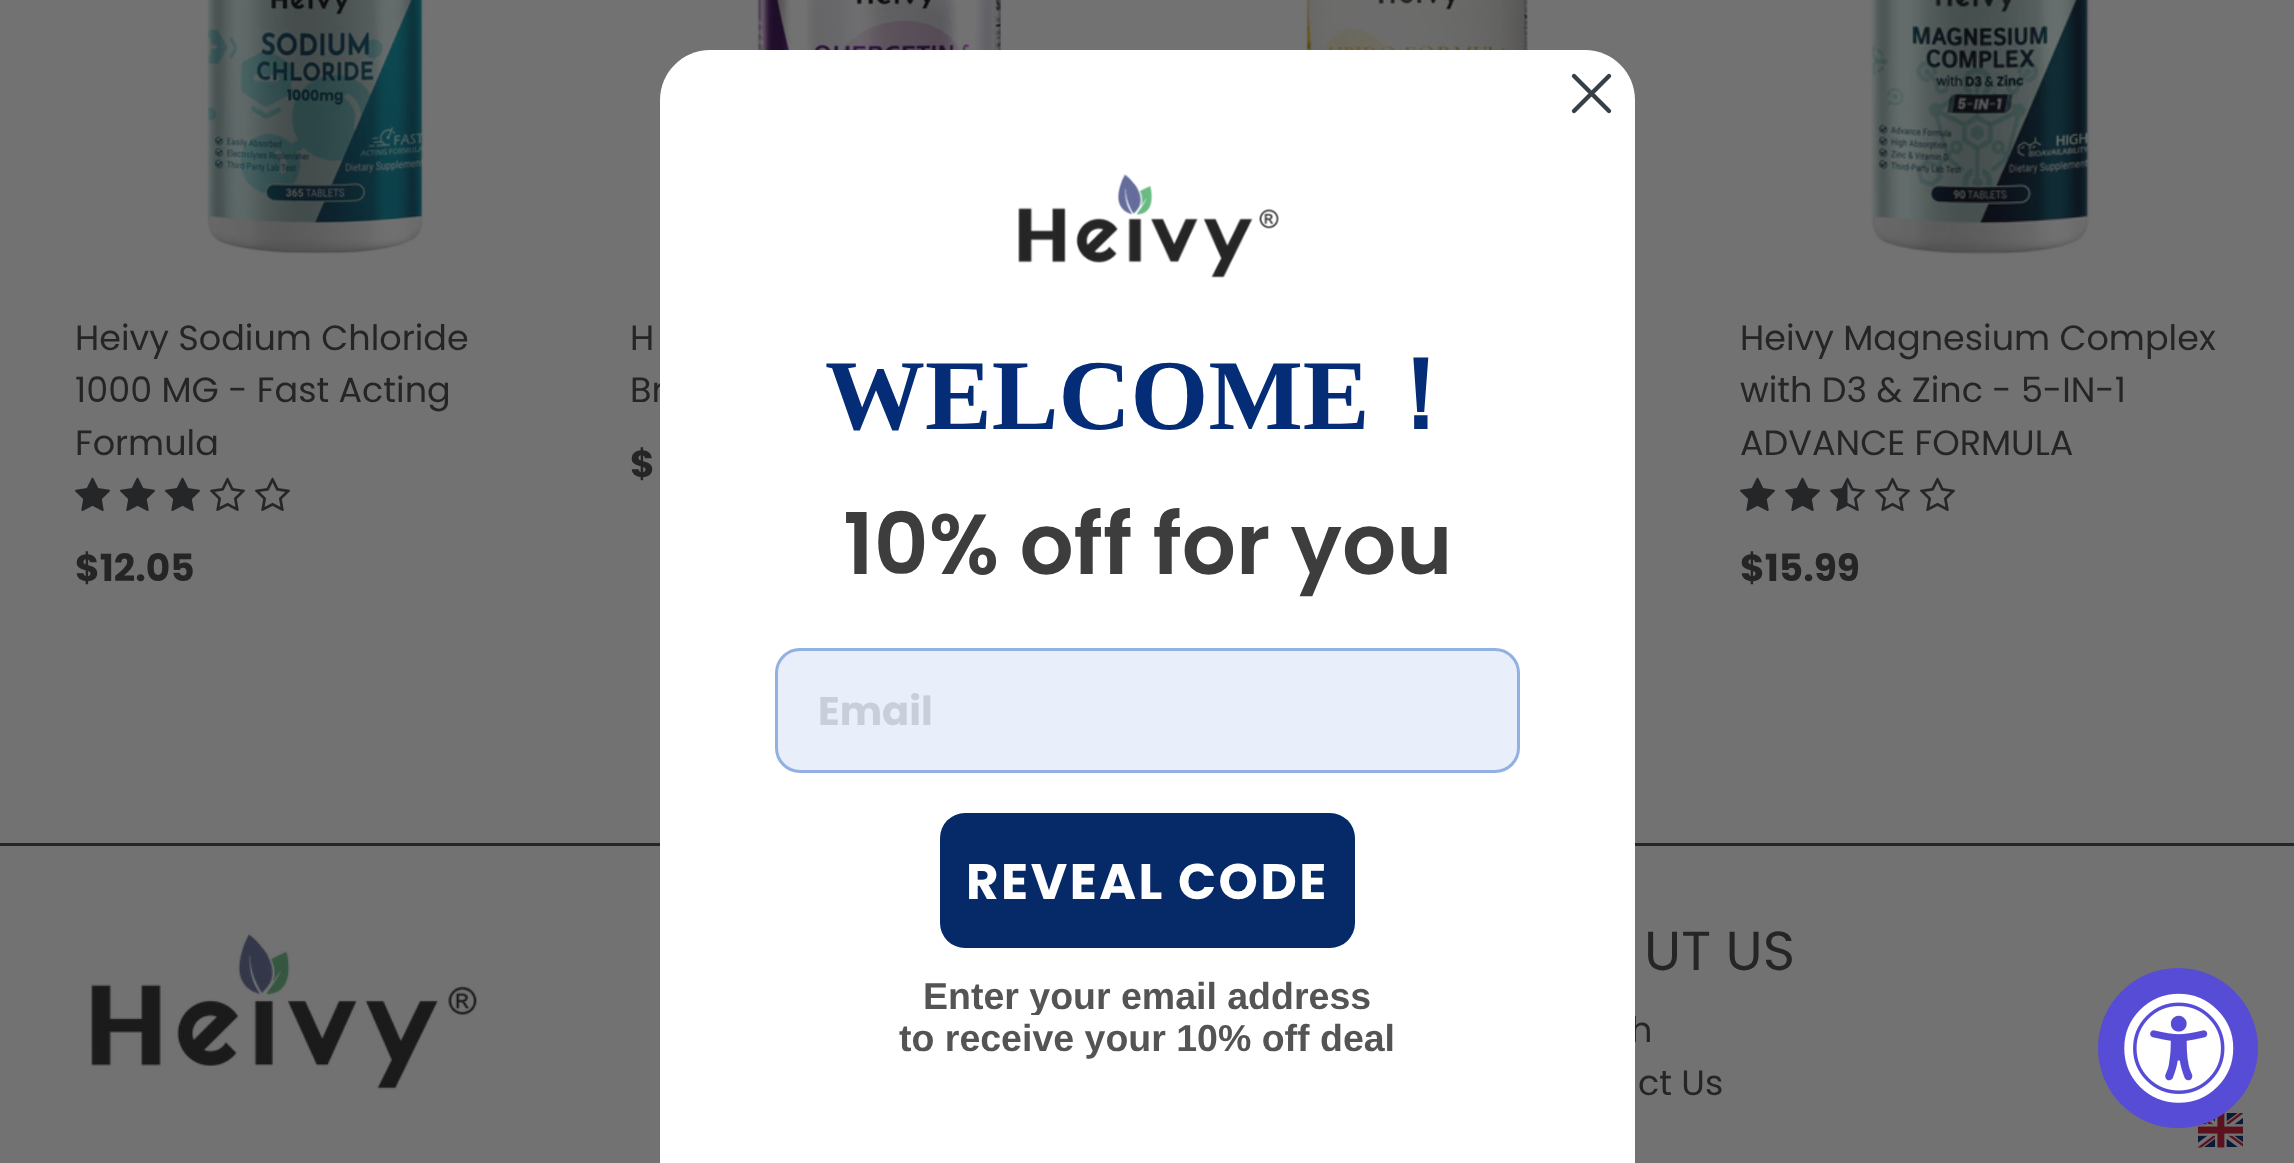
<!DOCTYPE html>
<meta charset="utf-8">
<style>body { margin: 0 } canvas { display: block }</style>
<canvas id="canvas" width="2294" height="1163"></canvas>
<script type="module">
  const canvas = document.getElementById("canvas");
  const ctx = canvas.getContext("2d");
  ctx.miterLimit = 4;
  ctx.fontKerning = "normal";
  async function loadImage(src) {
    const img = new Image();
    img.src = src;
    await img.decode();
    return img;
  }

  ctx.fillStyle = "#727272";
  ctx.fillRect(0, 0, 2294, 1163);
  ctx.drawImage(await loadImage("img1.png"), 1306, 0, 222, 50);
  ctx.drawImage(await loadImage("img2.png"), 203, 0, 223, 254);
  ctx.font = "35px Poppins";
  ctx.fillStyle = "#252525";
  ctx.fillText("Heivy Sodium Chloride", 75, 350);
  ctx.fillText("1000 MG - Fast Acting", 75, 402);
  ctx.fillText("Formula", 75, 455);
  ctx.drawImage(await loadImage("img3.png"), 75, 477, 35, 34);
  ctx.drawImage(await loadImage("img3.png"), 120, 477, 35, 34);
  ctx.drawImage(await loadImage("img3.png"), 165, 477, 35, 34);
  ctx.drawImage(await loadImage("img4.png"), 210, 477, 35, 34);
  ctx.drawImage(await loadImage("img4.png"), 255, 477, 35, 34);
  ctx.font = "bold 37.5px Poppins";
  ctx.fillText("$12.05", 75, 581);
  ctx.drawImage(await loadImage("img5.png"), 756, 0, 247, 50);
  ctx.font = "35px Poppins";
  ctx.fillText("H", 630, 350);
  ctx.fillText("Br", 630, 402);
  ctx.font = "bold 37.5px Poppins";
  ctx.fillText("$", 630, 477);
  ctx.drawImage(await loadImage("img6.png"), 1868, 0, 224, 255);
  ctx.font = "35px Poppins";
  ctx.fillText("Heivy Magnesium Complex", 1740, 350);
  ctx.fillText("with D3 & Zinc - 5-IN-1", 1740, 402);
  ctx.fillText("ADVANCE FORMULA", 1740, 455);
  ctx.drawImage(await loadImage("img3.png"), 1740, 477, 35, 34);
  ctx.drawImage(await loadImage("img3.png"), 1785, 477, 35, 34);
  ctx.drawImage(await loadImage("img7.png"), 1830, 477, 35, 34);
  ctx.drawImage(await loadImage("img4.png"), 1875, 477, 35, 34);
  ctx.drawImage(await loadImage("img4.png"), 1920, 477, 35, 34);
  ctx.font = "bold 37.5px Poppins";
  ctx.fillText("$15.99", 1740, 581);
  ctx.fillRect(0, 843, 2294, 3);
  ctx.drawImage(await loadImage("img8.png"), 91, 933, 386, 157);
  ctx.font = "55px Poppins";
  ctx.fillText("UT US", 1644, 970);
  ctx.font = "35px Poppins";
  ctx.fillText("h", 1630, 1042);
  ctx.fillText("ct Us", 1638, 1095);
  ctx.fillStyle = "#ffffff";
  ctx.beginPath();
  ctx.moveTo(710, 50);
  ctx.lineTo(1585, 50);
  ctx.bezierCurveTo(1612.5, 50, 1635, 72.5, 1635, 100);
  ctx.lineTo(1635, 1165);
  ctx.lineTo(660, 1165);
  ctx.lineTo(660, 100);
  ctx.bezierCurveTo(660, 72.5, 682.5, 50, 710, 50);
  ctx.closePath();
  ctx.fill();
  ctx.beginPath();
  ctx.moveTo(1574, 76);
  ctx.lineTo(1609, 111);
  ctx.moveTo(1574, 111);
  ctx.lineTo(1609, 76);
  ctx.closePath();
  ctx.strokeStyle = "#373f47";
  ctx.lineWidth = 4.4;
  ctx.lineCap = "round";
  ctx.lineJoin = "round";
  ctx.stroke();
  ctx.drawImage(await loadImage("img9.png"), 1018, 174, 261, 104);
  ctx.font = "bold 100px Liberation Serif";
  ctx.fillStyle = "#052c77";
  ctx.fillText("WELCOME", 825, 429);
  ctx.font = "bold 100px WenQuanYi Zen Hei";
  ctx.fillText("！", 1370, 429);
  ctx.font = "600 85px Poppins";
  ctx.fillStyle = "#3d3d3d";
  ctx.fillText("10% off for you", 843, 574);
  ctx.fillStyle = "#e8eefa";
  ctx.beginPath();
  ctx.roundRect(776.5, 649.5, 742, 122, 23.5);
  ctx.fill();
  ctx.strokeStyle = "#92b0e2";
  ctx.lineWidth = 3;
  ctx.lineJoin = "miter";
  ctx.stroke();
  ctx.font = "bold 40px Poppins";
  ctx.fillStyle = "#c8cfda";
  ctx.fillText("Email", 818, 725);
  ctx.fillStyle = "#062a68";
  ctx.beginPath();
  ctx.roundRect(940, 813, 415, 135, 25);
  ctx.fill();
  ctx.letterSpacing = "2.5px";
  ctx.font = "bold 50px Poppins";
  ctx.fillStyle = "#ffffff";
  ctx.fillText("REVEAL CODE", 966, 899);
  ctx.letterSpacing = "0px";
  ctx.font = "bold 37.5px Liberation Sans";
  ctx.fillStyle = "#545454";
  ctx.fillText("Enter your email address", 923, 1009);
  ctx.fillText("to receive your 10% off deal", 899, 1051);
  ctx.fillStyle = "#ffffff";
  ctx.fillRect(1031, 1015, 9, 2);
  ctx.drawImage(await loadImage("img11.png"), 2198, 1113, 45, 35);
  ctx.fillStyle = "#574cd5";
  ctx.beginPath();
  ctx.arc(2178, 1048, 80, 0, Math.PI * 2);
  ctx.fill();
  ctx.drawImage(await loadImage("img10.png"), 2124, 993, 110, 110);
</script>
